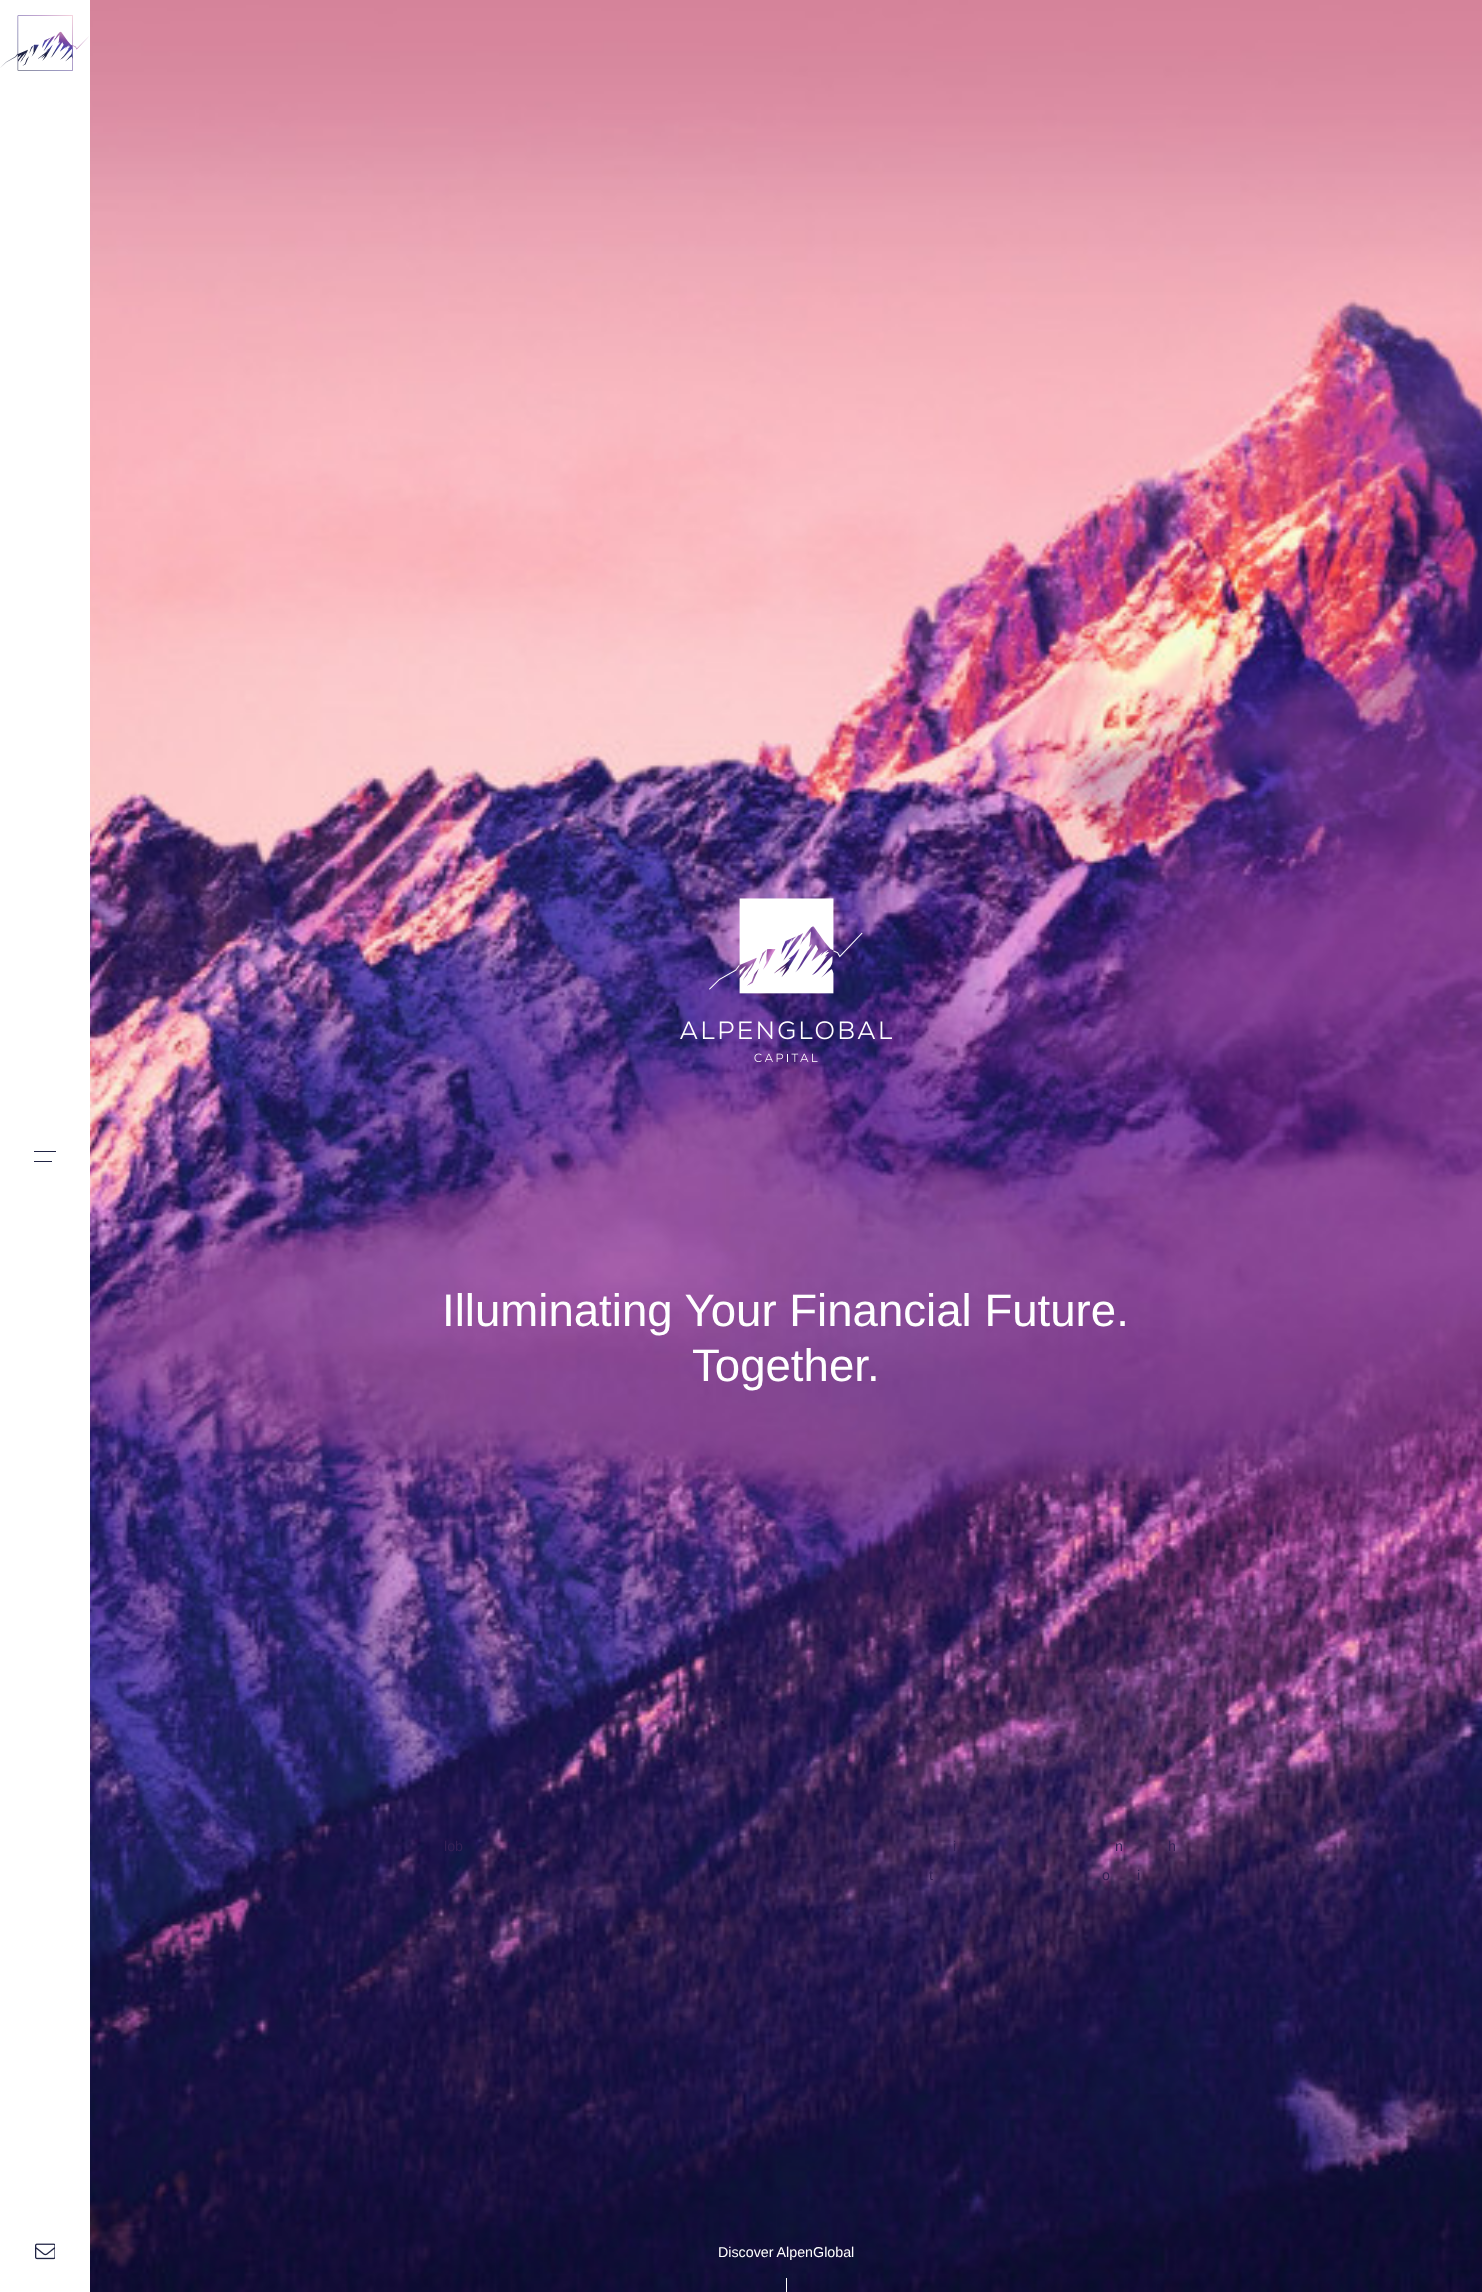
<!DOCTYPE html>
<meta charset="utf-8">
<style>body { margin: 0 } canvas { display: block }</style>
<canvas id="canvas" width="1482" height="2292"></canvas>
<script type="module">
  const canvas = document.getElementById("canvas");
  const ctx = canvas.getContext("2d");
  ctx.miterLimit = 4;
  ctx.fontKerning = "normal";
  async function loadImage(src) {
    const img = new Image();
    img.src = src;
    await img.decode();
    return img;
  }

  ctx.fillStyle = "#ffffff";
  ctx.fillRect(0, 0, 1482, 2292);
  ctx.drawImage(await loadImage("img1.png"), 0, 15, 89, 56);
  ctx.fillStyle = "#1f2343";
  ctx.fillRect(34, 1151, 22, 1);
  ctx.fillRect(34, 1161, 18, 1);
  ctx.drawImage(await loadImage("img2.png"), 35, 2243, 20, 17);
  ctx.drawImage(await loadImage("img3.png"), 90, 0, 1392, 2292);
  ctx.drawImage(await loadImage("img4.png"), 680, 898, 212, 164);
  ctx.font = "45.6px Liberation Sans";
  ctx.fillStyle = "#ffffff";
  ctx.fillText("Illuminating Your Financial Future.", 442, 1326);
  ctx.fillText("Together.", 692, 1381);
  ctx.font = "14.25px Liberation Sans";
  ctx.fillStyle = "#332055";
  ctx.fillText("lob", 444, 1851);
  ctx.fillText("i", 953, 1851);
  ctx.fillText("n", 1115, 1851);
  ctx.fillText("h", 1168, 1851);
  ctx.fillText("t", 929, 1880);
  ctx.fillText("o", 1102, 1880);
  ctx.fillText("i", 1137, 1880);
  ctx.fillStyle = "#ffffff";
  ctx.fillText("Discover AlpenGlobal", 718, 2257);
  ctx.fillRect(786, 2278, 1, 14);
</script>
